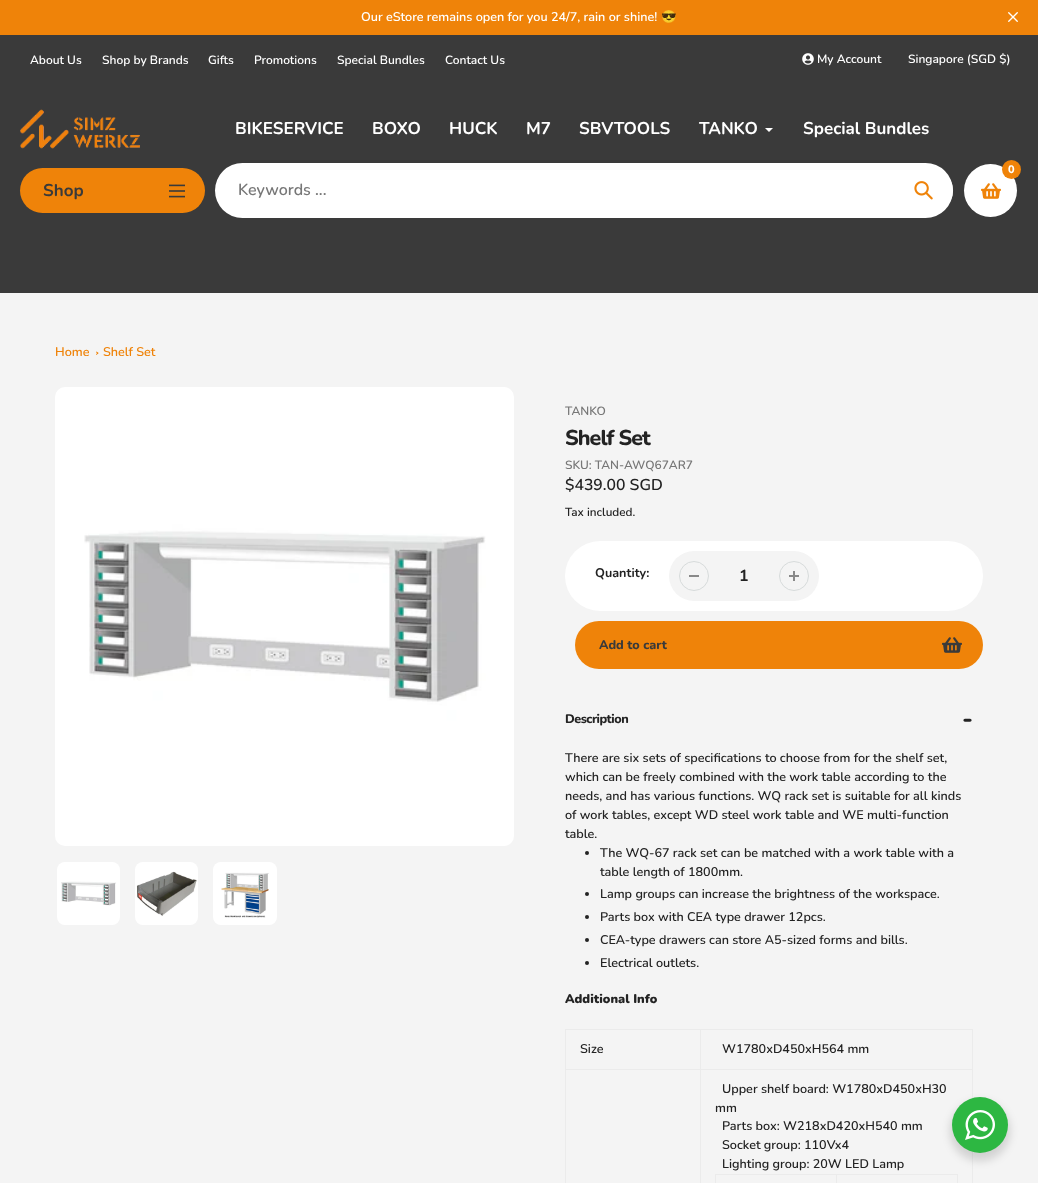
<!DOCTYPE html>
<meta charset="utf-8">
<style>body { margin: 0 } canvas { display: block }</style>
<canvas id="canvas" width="1038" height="1183"></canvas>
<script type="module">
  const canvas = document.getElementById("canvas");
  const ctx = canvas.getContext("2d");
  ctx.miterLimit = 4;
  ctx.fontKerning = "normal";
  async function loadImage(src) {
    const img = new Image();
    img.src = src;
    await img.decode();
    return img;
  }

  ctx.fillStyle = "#f4f4f4";
  ctx.fillRect(0, 0, 1038, 1183);
  ctx.fillStyle = "#ef8309";
  ctx.fillRect(0, 0, 1038, 35);
  ctx.font = "600 12.6px Nunito";
  ctx.fillStyle = "#ffffff";
  ctx.fillText("Our eStore remains open for you 24/7, rain or shine!", 361, 21);
  ctx.font = "bold 12.6px Noto Color Emoji";
  ctx.fillText("😎", 661, 21);
  ctx.drawImage(await loadImage("img1.png"), 1008, 12, 10, 10);
  ctx.fillStyle = "#3a3a3a";
  ctx.fillRect(0, 35, 1038, 258);
  ctx.font = "600 12px Nunito";
  ctx.fillStyle = "#ffffff";
  ctx.fillText("About Us", 30, 64);
  ctx.fillText("Shop by Brands", 102, 64);
  ctx.fillText("Gifts", 208, 64);
  ctx.fillText("Promotions", 254, 64);
  ctx.fillText("Special Bundles", 337, 64);
  ctx.fillText("Contact Us", 445, 64);
  ctx.drawImage(await loadImage("img2.png"), 802, 53, 12, 12);
  ctx.fillText("My Account", 817, 63);
  ctx.fillText("Singapore (SGD $)", 908, 63);
  ctx.drawImage(await loadImage("img3.png"), 20, 109, 120, 40);
  ctx.font = "bold 17px Nunito";
  ctx.fillText("BIKESERVICE", 235, 134);
  ctx.fillText("BOXO", 372, 134);
  ctx.fillText("HUCK", 449, 134);
  ctx.fillText("M7", 526, 134);
  ctx.fillText("SBVTOOLS", 579, 134);
  ctx.fillText("TANKO", 699, 134);
  ctx.beginPath();
  ctx.moveTo(773, 128);
  ctx.lineTo(769, 132);
  ctx.lineTo(765, 128);
  ctx.fill();
  ctx.fillText("Special Bundles", 803, 134);
  ctx.fillStyle = "#ef8309";
  ctx.beginPath();
  ctx.roundRect(20, 168, 185, 45, 22.5);
  ctx.fill();
  ctx.fillStyle = "#3a3a3a";
  ctx.fillText("Shop", 43, 196);
  ctx.drawImage(await loadImage("img4.png"), 169, 184, 16, 14);
  ctx.fillStyle = "#ffffff";
  ctx.beginPath();
  ctx.arc(990.5, 190.5, 26.5, 0, Math.PI * 2);
  ctx.fill();
  ctx.fillStyle = "#ef8309";
  ctx.beginPath();
  ctx.arc(1011.5, 169.5, 9.5, 0, Math.PI * 2);
  ctx.fill();
  ctx.font = "800 11px Nunito";
  ctx.fillStyle = "#ffffff";
  ctx.fillText("0", 1008, 173);
  ctx.drawImage(await loadImage("img5.png"), 981, 183, 20, 16);
  ctx.beginPath();
  ctx.roundRect(215, 163, 738, 55, 27.5);
  ctx.fill();
  ctx.beginPath();
  ctx.roundRect(220, 168, 733, 45, 22.5);
  ctx.fill();
  ctx.font = "600 16px Nunito";
  ctx.fillStyle = "#777777";
  ctx.fillText("Keywords ...", 238, 195);
  ctx.drawImage(await loadImage("img6.png"), 914, 181, 19, 19);
  ctx.font = "600 12.6px Nunito";
  ctx.fillStyle = "#ef8309";
  ctx.fillText("Home", 55, 356);
  ctx.beginPath();
  ctx.moveTo(96.5, 351.5);
  ctx.lineTo(98.5, 353);
  ctx.lineTo(97.5, 354);
  ctx.lineTo(96, 352);
  ctx.closePath();
  ctx.fill();
  ctx.beginPath();
  ctx.moveTo(97.5, 352.5);
  ctx.lineTo(98.5, 353);
  ctx.lineTo(96.5, 355);
  ctx.lineTo(96, 354.5);
  ctx.closePath();
  ctx.fill();
  ctx.fillText("Shelf Set", 103, 356);
  ctx.drawImage(await loadImage("img7.png"), 55, 387, 459, 459);
  ctx.drawImage(await loadImage("img8.png"), 57, 862, 63, 63);
  ctx.drawImage(await loadImage("img9.png"), 135, 862, 63, 63);
  ctx.drawImage(await loadImage("img10.png"), 213, 862, 64, 63);
  ctx.font = "600 12px Nunito";
  ctx.fillStyle = "#777777";
  ctx.fillText("TANKO", 565, 415);
  ctx.letterSpacing = "-1px";
  ctx.font = "800 21.5px Nunito";
  ctx.fillStyle = "#232323";
  ctx.fillText("Shelf Set", 565, 445);
  ctx.letterSpacing = "0px";
  ctx.font = "600 12px Nunito";
  ctx.fillStyle = "#777777";
  ctx.fillText("SKU: TAN-AWQ67AR7", 565, 469);
  ctx.font = "600 15.75px Nunito";
  ctx.fillStyle = "#232323";
  ctx.fillText("$439.00 SGD", 565, 490);
  ctx.font = "600 11.75px Nunito";
  ctx.fillText("Tax included.", 565, 516);
  ctx.fillStyle = "#ffffff";
  ctx.beginPath();
  ctx.roundRect(565, 541, 418, 70, 35);
  ctx.fill();
  ctx.font = "bold 12.6px Nunito";
  ctx.fillStyle = "#232323";
  ctx.fillText("Quantity:", 595, 577);
  ctx.fillStyle = "#f4f4f4";
  ctx.beginPath();
  ctx.roundRect(669, 551, 150, 50, 25);
  ctx.fill();
  ctx.fillStyle = "#898989";
  ctx.fillRect(689, 575, 10, 2);
  ctx.beginPath();
  ctx.arc(694, 576, 14.5, 0, Math.PI * 2);
  ctx.strokeStyle = "#d7dbdb";
  ctx.stroke();
  ctx.font = "bold 16px Nunito";
  ctx.fillStyle = "#232323";
  ctx.fillText("1", 739, 581);
  ctx.drawImage(await loadImage("img11.png"), 789, 571, 10, 10);
  ctx.beginPath();
  ctx.arc(794, 576, 14.5, 0, Math.PI * 2);
  ctx.stroke();
  ctx.fillStyle = "#ef8309";
  ctx.beginPath();
  ctx.roundRect(575, 621, 408, 48, 24);
  ctx.fill();
  ctx.font = "800 12.6px Nunito";
  ctx.fillStyle = "#3a3a3a";
  ctx.fillText("Add to cart", 599, 649);
  ctx.drawImage(await loadImage("img12.png"), 942, 637, 20, 16);
  ctx.letterSpacing = "-0.5px";
  ctx.fillStyle = "#232323";
  ctx.fillText("Description", 565, 723);
  ctx.font = "800 25px Nunito";
  ctx.fillText("-", 962, 727);
  ctx.letterSpacing = "0px";
  ctx.font = "600 12.6px Nunito";
  ctx.fillText("There are six sets of specifications to choose from for the shelf set,", 565, 762);
  ctx.fillText("which can be freely combined with the work table according to the", 565, 781);
  ctx.fillText("needs, and has various functions. WQ rack set is suitable for all kinds", 565, 800);
  ctx.fillText("of work tables, except WD steel work table and WE multi-function", 565, 819);
  ctx.fillText("table.", 565, 838);
  ctx.beginPath();
  ctx.arc(587, 853, 2, 0, Math.PI * 2);
  ctx.fill();
  ctx.fillText("The WQ-67 rack set can be matched with a work table with a", 600, 857);
  ctx.fillText("table length of 1800mm.", 600, 876);
  ctx.beginPath();
  ctx.arc(587, 894, 2, 0, Math.PI * 2);
  ctx.fill();
  ctx.fillText("Lamp groups can increase the brightness of the workspace.", 600, 898);
  ctx.beginPath();
  ctx.arc(587, 917, 2, 0, Math.PI * 2);
  ctx.fill();
  ctx.fillText("Parts box with CEA type drawer 12pcs.", 600, 921);
  ctx.beginPath();
  ctx.arc(587, 940, 2, 0, Math.PI * 2);
  ctx.fill();
  ctx.fillText("CEA-type drawers can store A5-sized forms and bills.", 600, 944);
  ctx.beginPath();
  ctx.arc(587, 963, 2, 0, Math.PI * 2);
  ctx.fill();
  ctx.fillText("Electrical outlets.", 600, 967);
  ctx.font = "900 12.6px Nunito";
  ctx.fillText("Additional Info", 565, 1003);
  ctx.fillStyle = "#ebebeb";
  ctx.fillRect(700, 1029, 273, 1);
  ctx.fillRect(700, 1069, 273, 1);
  ctx.fillRect(700, 1069, 1, 114);
  ctx.fillRect(565, 1069, 136, 1);
  ctx.fillRect(700, 1029, 1, 41);
  ctx.fillRect(565, 1029, 136, 1);
  ctx.fillRect(565, 1069, 1, 114);
  ctx.fillRect(565, 1029, 1, 41);
  ctx.font = "600 12.6px Nunito";
  ctx.fillStyle = "#232323";
  ctx.fillText("Size", 580, 1053);
  ctx.fillStyle = "#ebebeb";
  ctx.fillRect(972, 1069, 1, 114);
  ctx.fillRect(972, 1029, 1, 41);
  ctx.fillStyle = "#232323";
  ctx.fillText("W1780xD450xH564 mm", 722, 1053);
  ctx.fillText("Upper shelf board: W1780xD450xH30", 722, 1093);
  ctx.fillText("mm", 715, 1112);
  ctx.fillText("Parts box: W218xD420xH540 mm", 722, 1130);
  ctx.fillText("Socket group: 110Vx4", 722, 1149);
  ctx.fillText("Lighting group: 20W LED Lamp", 722, 1168);
  ctx.fillStyle = "#ebebeb";
  ctx.fillRect(836, 1174, 122, 1);
  ctx.fillRect(836, 1174, 1, 9);
  ctx.fillRect(715, 1174, 122, 1);
  ctx.fillRect(715, 1174, 1, 9);
  ctx.fillRect(957, 1174, 1, 9);
  ctx.fillStyle = "rgba(0, 0, 0, 0.14)";
  ctx.filter = "blur(4px)";
  ctx.beginPath();
  ctx.roundRect(950, 1101, 60, 60, 30);
  ctx.fill();
  ctx.filter = "none";
  ctx.fillStyle = "#2db742";
  ctx.beginPath();
  ctx.arc(980, 1125, 28, 0, Math.PI * 2);
  ctx.fill();
  ctx.drawImage(await loadImage("img13.png"), 965, 1110, 30, 30);
</script>
